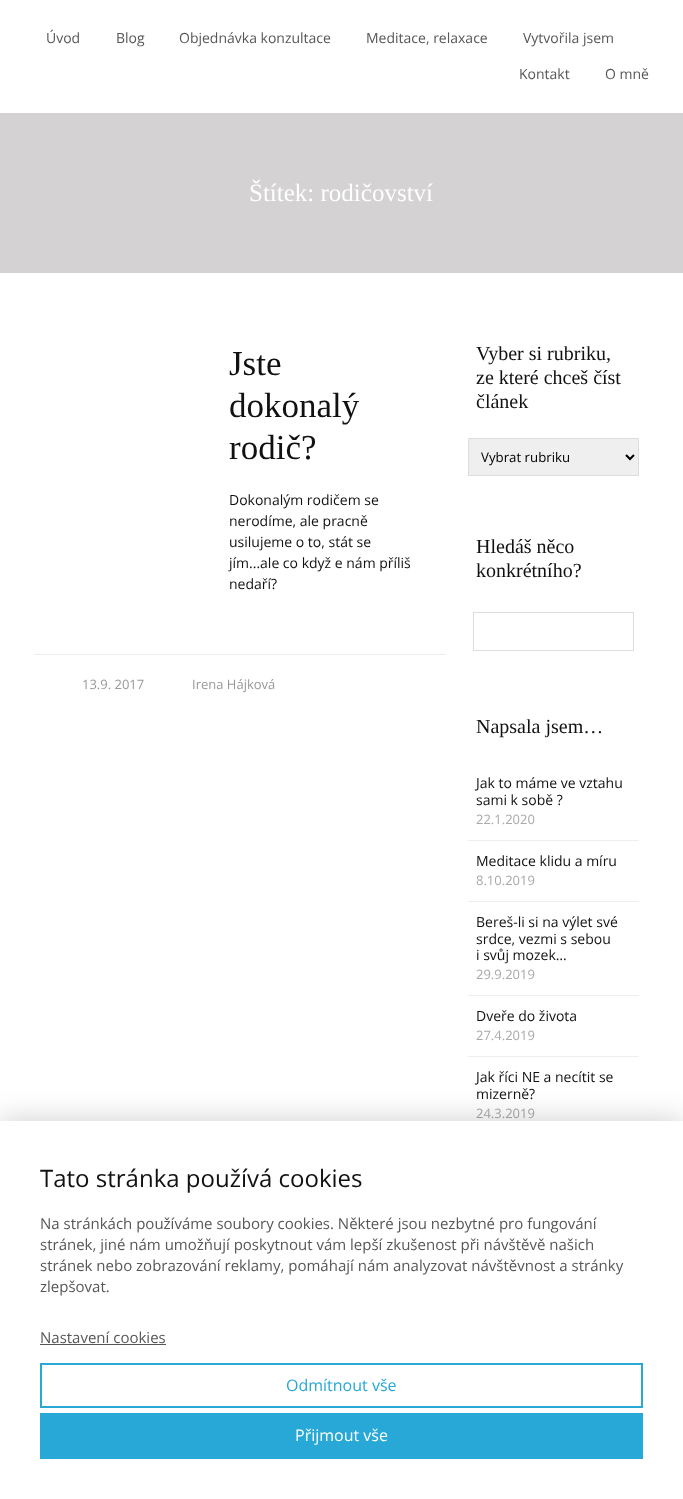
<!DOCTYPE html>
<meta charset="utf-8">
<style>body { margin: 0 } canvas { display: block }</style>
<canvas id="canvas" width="683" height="1499"></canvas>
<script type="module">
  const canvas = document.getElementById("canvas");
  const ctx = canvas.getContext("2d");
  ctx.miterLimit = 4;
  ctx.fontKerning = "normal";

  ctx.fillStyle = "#ffffff";
  ctx.fillRect(0, 0, 683, 1499);
  ctx.font = "14px Open Sans";
  ctx.fillStyle = "#575757";
  ctx.fillText("Úvod", 46, 43);
  ctx.fillText("Blog", 116, 43);
  ctx.fillText("Objednávka konzultace", 179, 43);
  ctx.fillText("Meditace, relaxace", 366, 43);
  ctx.fillText("Vytvořila jsem", 523, 43);
  ctx.fillText("Kontakt", 519, 79);
  ctx.fillText("O mně", 605, 79);
  ctx.fillStyle = "#d4d2d2";
  ctx.fillRect(0, 113, 683, 160);
  ctx.font = "25px Liberation Serif";
  ctx.fillStyle = "#ffffff";
  ctx.fillText("Štítek: rodičovství", 249, 201);
  ctx.font = "35px Liberation Serif";
  ctx.fillStyle = "#111111";
  ctx.fillText("Jste", 229, 375);
  ctx.fillText("dokonalý", 229, 417);
  ctx.fillText("rodič?", 229, 459);
  ctx.font = "14px Open Sans";
  ctx.fillText("Dokonalým rodičem se", 229, 505);
  ctx.fillText("nerodíme, ale pracně", 229, 526);
  ctx.fillText("usilujeme o to, stát se", 229, 547);
  ctx.fillText("jím...ale co když e nám příliš", 229, 568);
  ctx.fillText("nedaří?", 229, 589);
  ctx.fillStyle = "#eeeeee";
  ctx.fillRect(34, 654, 412, 1);
  ctx.font = "13px Open Sans";
  ctx.fillStyle = "#999999";
  ctx.fillText("13.9. 2017", 82, 689);
  ctx.fillText("Irena Hájková", 192, 689);
  ctx.font = "20px Liberation Serif";
  ctx.fillStyle = "#111111";
  ctx.fillText("Vyber si rubriku,", 476, 360);
  ctx.fillText("ze které chceš číst", 476, 384);
  ctx.fillText("článek", 476, 408);
  ctx.fillStyle = "#efefef";
  ctx.beginPath();
  ctx.rect(468.5, 438.5, 170, 37);
  ctx.fill();
  ctx.strokeStyle = "#dddddd";
  ctx.stroke();
  ctx.beginPath();
  ctx.moveTo(626, 455);
  ctx.lineTo(630, 459);
  ctx.lineTo(634, 455);
  ctx.strokeStyle = "#000000";
  ctx.lineWidth = 2;
  ctx.stroke();
  ctx.font = "13.25px Open Sans";
  ctx.fillStyle = "#000000";
  ctx.fillText("Vybrat rubriku", 481, 462);
  ctx.font = "20px Liberation Serif";
  ctx.fillStyle = "#111111";
  ctx.fillText("Hledáš něco", 476, 553);
  ctx.fillText("konkrétního?", 476, 577);
  ctx.strokeStyle = "#dddddd";
  ctx.lineWidth = 1;
  ctx.strokeRect(473.5, 612.5, 160, 38);
  ctx.fillText("Napsala jsem…", 476, 733);
  ctx.fillStyle = "#eeeeee";
  ctx.fillRect(468, 840, 171, 1);
  ctx.font = "14px Open Sans";
  ctx.fillStyle = "#111111";
  ctx.fillText("Jak to máme ve vztahu", 476, 788);
  ctx.fillText("sami k sobě ?", 476, 805);
  ctx.font = "13px Open Sans";
  ctx.fillStyle = "#aaaaaa";
  ctx.fillText("22.1.2020", 476, 824);
  ctx.fillStyle = "#eeeeee";
  ctx.fillRect(468, 901, 171, 1);
  ctx.font = "14px Open Sans";
  ctx.fillStyle = "#111111";
  ctx.fillText("Meditace klidu a míru", 476, 866);
  ctx.font = "13px Open Sans";
  ctx.fillStyle = "#aaaaaa";
  ctx.fillText("8.10.2019", 476, 885);
  ctx.fillStyle = "#eeeeee";
  ctx.fillRect(468, 995, 171, 1);
  ctx.font = "14px Open Sans";
  ctx.fillStyle = "#111111";
  ctx.fillText("Bereš-li si na výlet své", 476, 927);
  ctx.fillText("srdce, vezmi s sebou", 476, 944);
  ctx.fillText("i svůj mozek…", 476, 960);
  ctx.font = "13px Open Sans";
  ctx.fillStyle = "#aaaaaa";
  ctx.fillText("29.9.2019", 476, 979);
  ctx.fillStyle = "#eeeeee";
  ctx.fillRect(468, 1056, 171, 1);
  ctx.font = "14px Open Sans";
  ctx.fillStyle = "#111111";
  ctx.fillText("Dveře do života", 476, 1021);
  ctx.font = "13px Open Sans";
  ctx.fillStyle = "#aaaaaa";
  ctx.fillText("27.4.2019", 476, 1040);
  ctx.font = "14px Open Sans";
  ctx.fillStyle = "#111111";
  ctx.fillText("Jak říci NE a necítit se", 476, 1082);
  ctx.fillText("mizerně?", 476, 1099);
  ctx.font = "13px Open Sans";
  ctx.fillStyle = "#aaaaaa";
  ctx.fillText("24.3.2019", 476, 1118);
  ctx.fillStyle = "rgba(0, 0, 0, 0.2)";
  ctx.filter = "blur(15px)";
  ctx.beginPath();
  ctx.rect(0, 1121, 683, 378);
  ctx.fill();
  ctx.filter = "none";
  ctx.fillStyle = "#ffffff";
  ctx.fillRect(0, 1121, 683, 378);
  ctx.font = "24px Open Sans";
  ctx.fillStyle = "#111111";
  ctx.fillText("Tato stránka používá cookies", 40, 1187);
  ctx.font = "15px Open Sans";
  ctx.fillStyle = "#575757";
  ctx.fillText("Na stránkách používáme soubory cookies. Některé jsou nezbytné pro fungování", 40, 1229);
  ctx.fillText("stránek, jiné nám umožňují poskytnout vám lepší zkušenost při návštěvě našich", 40, 1250);
  ctx.fillText("stránek nebo zobrazování reklamy, pomáhají nám analyzovat návštěvnost a stránky", 40, 1271);
  ctx.fillText("zlepšovat.", 40, 1292);
  ctx.fillText("Nastavení cookies", 40, 1343);
  ctx.fillStyle = "#555555";
  ctx.fillRect(40, 1344, 126, 1);
  ctx.strokeStyle = "#27a8d7";
  ctx.lineWidth = 2;
  ctx.strokeRect(41, 1364, 601, 43);
  ctx.font = "16px Open Sans";
  ctx.fillStyle = "#27a8d7";
  ctx.fillText("Odmítnout vše", 286, 1391);
  ctx.fillRect(40, 1413, 603, 46);
  ctx.fillStyle = "#ffffff";
  ctx.fillText("Přijmout vše", 295, 1441);
</script>
